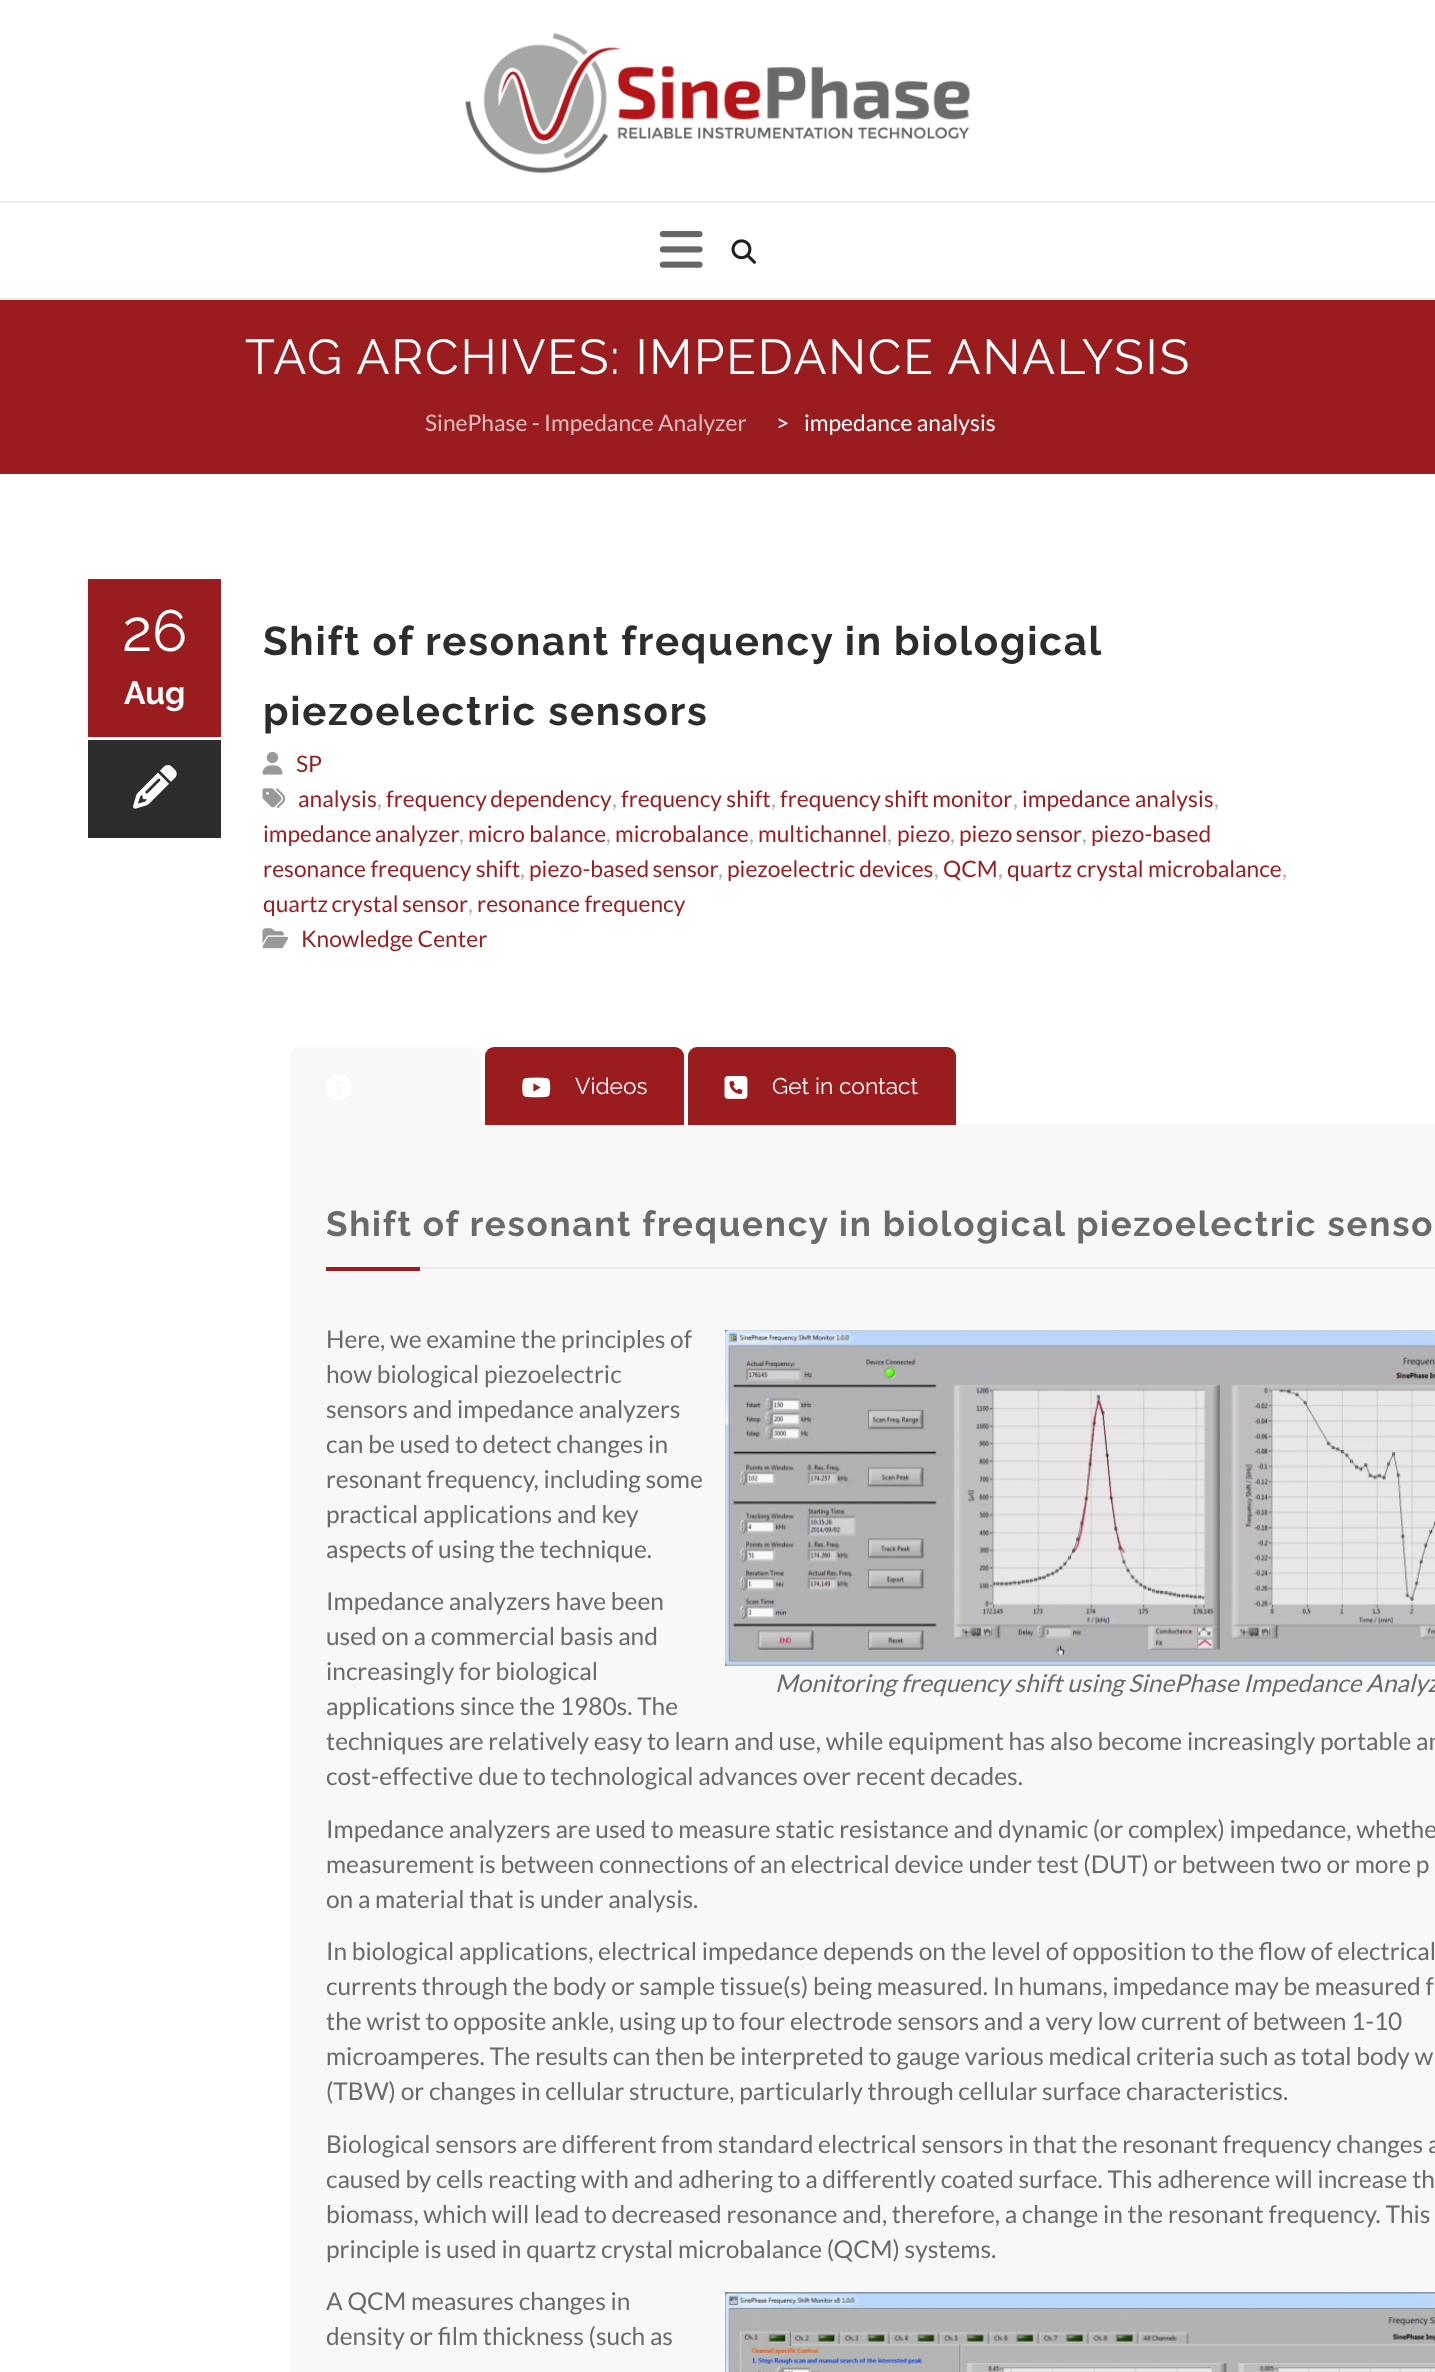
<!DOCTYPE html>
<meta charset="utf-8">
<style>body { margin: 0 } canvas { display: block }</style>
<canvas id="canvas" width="1435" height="2372"></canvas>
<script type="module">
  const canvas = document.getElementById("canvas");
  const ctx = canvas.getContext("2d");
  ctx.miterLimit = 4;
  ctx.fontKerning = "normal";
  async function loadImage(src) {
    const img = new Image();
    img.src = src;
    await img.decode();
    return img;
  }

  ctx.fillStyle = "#ffffff";
  ctx.fillRect(0, 0, 1435, 2372);
  ctx.drawImage(await loadImage("img1.png"), 465, 33, 505, 141);
  ctx.fillStyle = "#eaeaea";
  ctx.fillRect(0, 201, 1435, 2);
  ctx.drawImage(await loadImage("img2.png"), 659, 231, 44, 37);
  ctx.drawImage(await loadImage("img3.png"), 731, 239, 25, 25);
  ctx.fillRect(0, 298, 1435, 2);
  ctx.fillStyle = "#9a1c1f";
  ctx.fillRect(0, 300, 1435, 174);
  ctx.letterSpacing = "1.75px";
  ctx.font = "49px Raleway";
  ctx.fillStyle = "#ffffff";
  ctx.fillText("TAG ARCHIVES: IMPEDANCE ANALYSIS", 245, 374);
  ctx.letterSpacing = "0px";
  ctx.font = "22.75px Lato";
  ctx.fillStyle = "#e3bfc0";
  ctx.fillText("SinePhase - Impedance Analyzer", 425, 431);
  ctx.fillStyle = "#ffffff";
  ctx.fillText(">", 776, 431);
  ctx.fillText("impedance analysis", 804, 431);
  ctx.fillStyle = "#9a1c1f";
  ctx.fillRect(88, 579, 133, 158);
  ctx.font = "58px Raleway";
  ctx.fillStyle = "#ffffff";
  ctx.fillText("26", 122, 651);
  ctx.font = "bold 32px Raleway";
  ctx.fillText("Aug", 124, 704);
  ctx.fillStyle = "#2d2d2d";
  ctx.fillRect(88, 740, 133, 98);
  ctx.drawImage(await loadImage("img4.png"), 133, 765, 44, 44);
  ctx.letterSpacing = "1.75px";
  ctx.wordSpacing = "-0.25px";
  ctx.font = "bold 40.25px Raleway";
  ctx.fillText("Shift of resonant frequency in biological", 263, 655);
  ctx.wordSpacing = "0px";
  ctx.fillText("piezoelectric sensors", 263, 725);
  ctx.drawImage(await loadImage("img5.png"), 262, 751, 21, 24);
  ctx.letterSpacing = "0px";
  ctx.font = "22.75px Lato";
  ctx.fillStyle = "#9a1c1f";
  ctx.fillText("SP", 296, 772);
  ctx.drawImage(await loadImage("img6.png"), 262, 788, 24, 21);
  ctx.fillText("analysis", 298, 807);
  ctx.fillStyle = "#acaeb1";
  ctx.fillText(",", 377, 807);
  ctx.wordSpacing = "-1px";
  ctx.fillStyle = "#9a1c1f";
  ctx.fillText("frequency dependency", 386, 807);
  ctx.wordSpacing = "0px";
  ctx.fillStyle = "#acaeb1";
  ctx.fillText(",", 612, 807);
  ctx.fillStyle = "#9a1c1f";
  ctx.fillText("frequency shift", 621, 807);
  ctx.fillStyle = "#acaeb1";
  ctx.fillText(",", 771, 807);
  ctx.wordSpacing = "-1px";
  ctx.fillStyle = "#9a1c1f";
  ctx.fillText("frequency shift monitor", 780, 807);
  ctx.wordSpacing = "0px";
  ctx.fillStyle = "#acaeb1";
  ctx.fillText(",", 1013, 807);
  ctx.fillStyle = "#9a1c1f";
  ctx.fillText("impedance analysis", 1022, 807);
  ctx.fillStyle = "#acaeb1";
  ctx.fillText(",", 1214, 807);
  ctx.wordSpacing = "-1px";
  ctx.fillStyle = "#9a1c1f";
  ctx.fillText("impedance analyzer", 263, 842);
  ctx.wordSpacing = "0px";
  ctx.fillStyle = "#acaeb1";
  ctx.fillText(",", 459, 842);
  ctx.fillStyle = "#9a1c1f";
  ctx.fillText("micro balance", 468, 842);
  ctx.fillStyle = "#acaeb1";
  ctx.fillText(",", 606, 842);
  ctx.fillStyle = "#9a1c1f";
  ctx.fillText("microbalance", 615, 842);
  ctx.fillStyle = "#acaeb1";
  ctx.fillText(",", 749, 842);
  ctx.fillStyle = "#9a1c1f";
  ctx.fillText("multichannel", 758, 842);
  ctx.fillStyle = "#acaeb1";
  ctx.fillText(",", 887, 842);
  ctx.fillStyle = "#9a1c1f";
  ctx.fillText("piezo", 897, 842);
  ctx.fillStyle = "#acaeb1";
  ctx.fillText(",", 950, 842);
  ctx.wordSpacing = "-1px";
  ctx.fillStyle = "#9a1c1f";
  ctx.fillText("piezo sensor", 959, 842);
  ctx.wordSpacing = "0px";
  ctx.fillStyle = "#acaeb1";
  ctx.fillText(",", 1082, 842);
  ctx.fillStyle = "#9a1c1f";
  ctx.fillText("piezo-based", 1091, 842);
  ctx.fillText("resonance frequency shift", 263, 877);
  ctx.fillStyle = "#acaeb1";
  ctx.fillText(",", 520, 877);
  ctx.wordSpacing = "-1px";
  ctx.fillStyle = "#9a1c1f";
  ctx.fillText("piezo-based sensor", 529, 877);
  ctx.wordSpacing = "0px";
  ctx.fillStyle = "#acaeb1";
  ctx.fillText(",", 718, 877);
  ctx.fillStyle = "#9a1c1f";
  ctx.fillText("piezoelectric devices", 727, 877);
  ctx.fillStyle = "#acaeb1";
  ctx.fillText(",", 934, 877);
  ctx.fillStyle = "#9a1c1f";
  ctx.fillText("QCM", 943, 877);
  ctx.fillStyle = "#acaeb1";
  ctx.fillText(",", 998, 877);
  ctx.fillStyle = "#9a1c1f";
  ctx.fillText("quartz crystal microbalance", 1007, 877);
  ctx.fillStyle = "#acaeb1";
  ctx.fillText(",", 1282, 877);
  ctx.wordSpacing = "-1px";
  ctx.fillStyle = "#9a1c1f";
  ctx.fillText("quartz crystal sensor", 263, 912);
  ctx.wordSpacing = "0px";
  ctx.fillStyle = "#acaeb1";
  ctx.fillText(",", 468, 912);
  ctx.fillStyle = "#9a1c1f";
  ctx.fillText("resonance frequency", 477, 912);
  ctx.drawImage(await loadImage("img7.png"), 262, 928, 26, 21);
  ctx.fillText("Knowledge Center", 301, 947);
  ctx.fillStyle = "#f8f8f8";
  ctx.fillRect(289, 1124, 1146, 1248);
  ctx.beginPath();
  ctx.roundRect(289, 1047, 192, 78, [9, 9, 0, 0]);
  ctx.fill();
  ctx.drawImage(await loadImage("img8.png"), 326, 1074, 26, 26);
  ctx.fillStyle = "#9a1c1f";
  ctx.beginPath();
  ctx.roundRect(485, 1047, 199, 78, [9, 9, 0, 0]);
  ctx.fill();
  ctx.drawImage(await loadImage("img9.png"), 522, 1077, 29, 21);
  ctx.font = "22.75px Raleway";
  ctx.fillStyle = "#ffffff";
  ctx.fillText("Videos", 575, 1094);
  ctx.fillStyle = "#9a1c1f";
  ctx.beginPath();
  ctx.roundRect(688, 1047, 268, 78, [9, 9, 0, 0]);
  ctx.fill();
  ctx.drawImage(await loadImage("img10.png"), 724, 1076, 24, 23);
  ctx.fillStyle = "#ffffff";
  ctx.fillText("Get in contact", 772, 1094);
  ctx.fillStyle = "#eaeaea";
  ctx.fillRect(420, 1267, 1015, 2);
  ctx.letterSpacing = "1.75px";
  ctx.font = "bold 35px Raleway";
  ctx.fillStyle = "#696a6c";
  ctx.fillText("Shift of resonant frequency in biological piezoelectric senso", 326, 1236);
  ctx.fillStyle = "#9a1c1f";
  ctx.fillRect(326, 1267, 94, 4);
  ctx.letterSpacing = "0px";
  ctx.font = "24.5px Lato";
  ctx.fillStyle = "#696a6c";
  ctx.fillText("Here, we examine the principles of", 326, 1348);
  ctx.fillText("how biological piezoelectric", 326, 1383);
  ctx.fillText("sensors and impedance analyzers", 326, 1418);
  ctx.fillText("can be used to detect changes in", 326, 1453);
  ctx.fillText("resonant frequency, including some", 326, 1488);
  ctx.fillText("practical applications and key", 326, 1523);
  ctx.fillText("aspects of using the technique.", 326, 1558);
  ctx.fillText("Impedance analyzers have been", 326, 1610);
  ctx.fillText("used on a commercial basis and", 326, 1645);
  ctx.fillText("increasingly for biological", 326, 1680);
  ctx.fillText("applications since the 1980s. The", 326, 1715);
  ctx.fillText("techniques are relatively easy to learn and use, while equipment has also become increasingly portable an", 326, 1750);
  ctx.fillText("cost-effective due to technological advances over recent decades.", 326, 1785);
  ctx.drawImage(await loadImage("img11.png"), 725, 1330, 710, 336);
  ctx.font = "italic 24.5px Lato";
  ctx.fillText("Monitoring frequency shift using SinePhase Impedance Analyz", 775, 1692);
  ctx.font = "24.5px Lato";
  ctx.fillText("Impedance analyzers are used to measure static resistance and dynamic (or complex) impedance, whethe", 326, 1838);
  ctx.fillText("measurement is between connections of an electrical device under test (DUT) or between two or more p", 326, 1873);
  ctx.fillText("on a material that is under analysis.", 326, 1908);
  ctx.fillText("In biological applications, electrical impedance depends on the level of opposition to the flow of electrical", 326, 1960);
  ctx.fillText("currents through the body or sample tissue(s) being measured. In humans, impedance may be measured f", 326, 1995);
  ctx.fillText("the wrist to opposite ankle, using up to four electrode sensors and a very low current of between 1-10", 326, 2030);
  ctx.fillText("microamperes. The results can then be interpreted to gauge various medical criteria such as total body w", 326, 2065);
  ctx.fillText("(TBW) or changes in cellular structure, particularly through cellular surface characteristics.", 326, 2100);
  ctx.fillText("Biological sensors are different from standard electrical sensors in that the resonant frequency changes a", 326, 2153);
  ctx.fillText("caused by cells reacting with and adhering to a differently coated surface. This adherence will increase th", 326, 2188);
  ctx.fillText("biomass, which will lead to decreased resonance and, therefore, a change in the resonant frequency. This", 326, 2223);
  ctx.fillText("principle is used in quartz crystal microbalance (QCM) systems.", 326, 2258);
  ctx.fillText("A QCM measures changes in", 326, 2310);
  ctx.fillText("density or film thickness (such as", 326, 2345);
  ctx.drawImage(await loadImage("img12.png"), 725, 2292, 710, 80);
</script>
